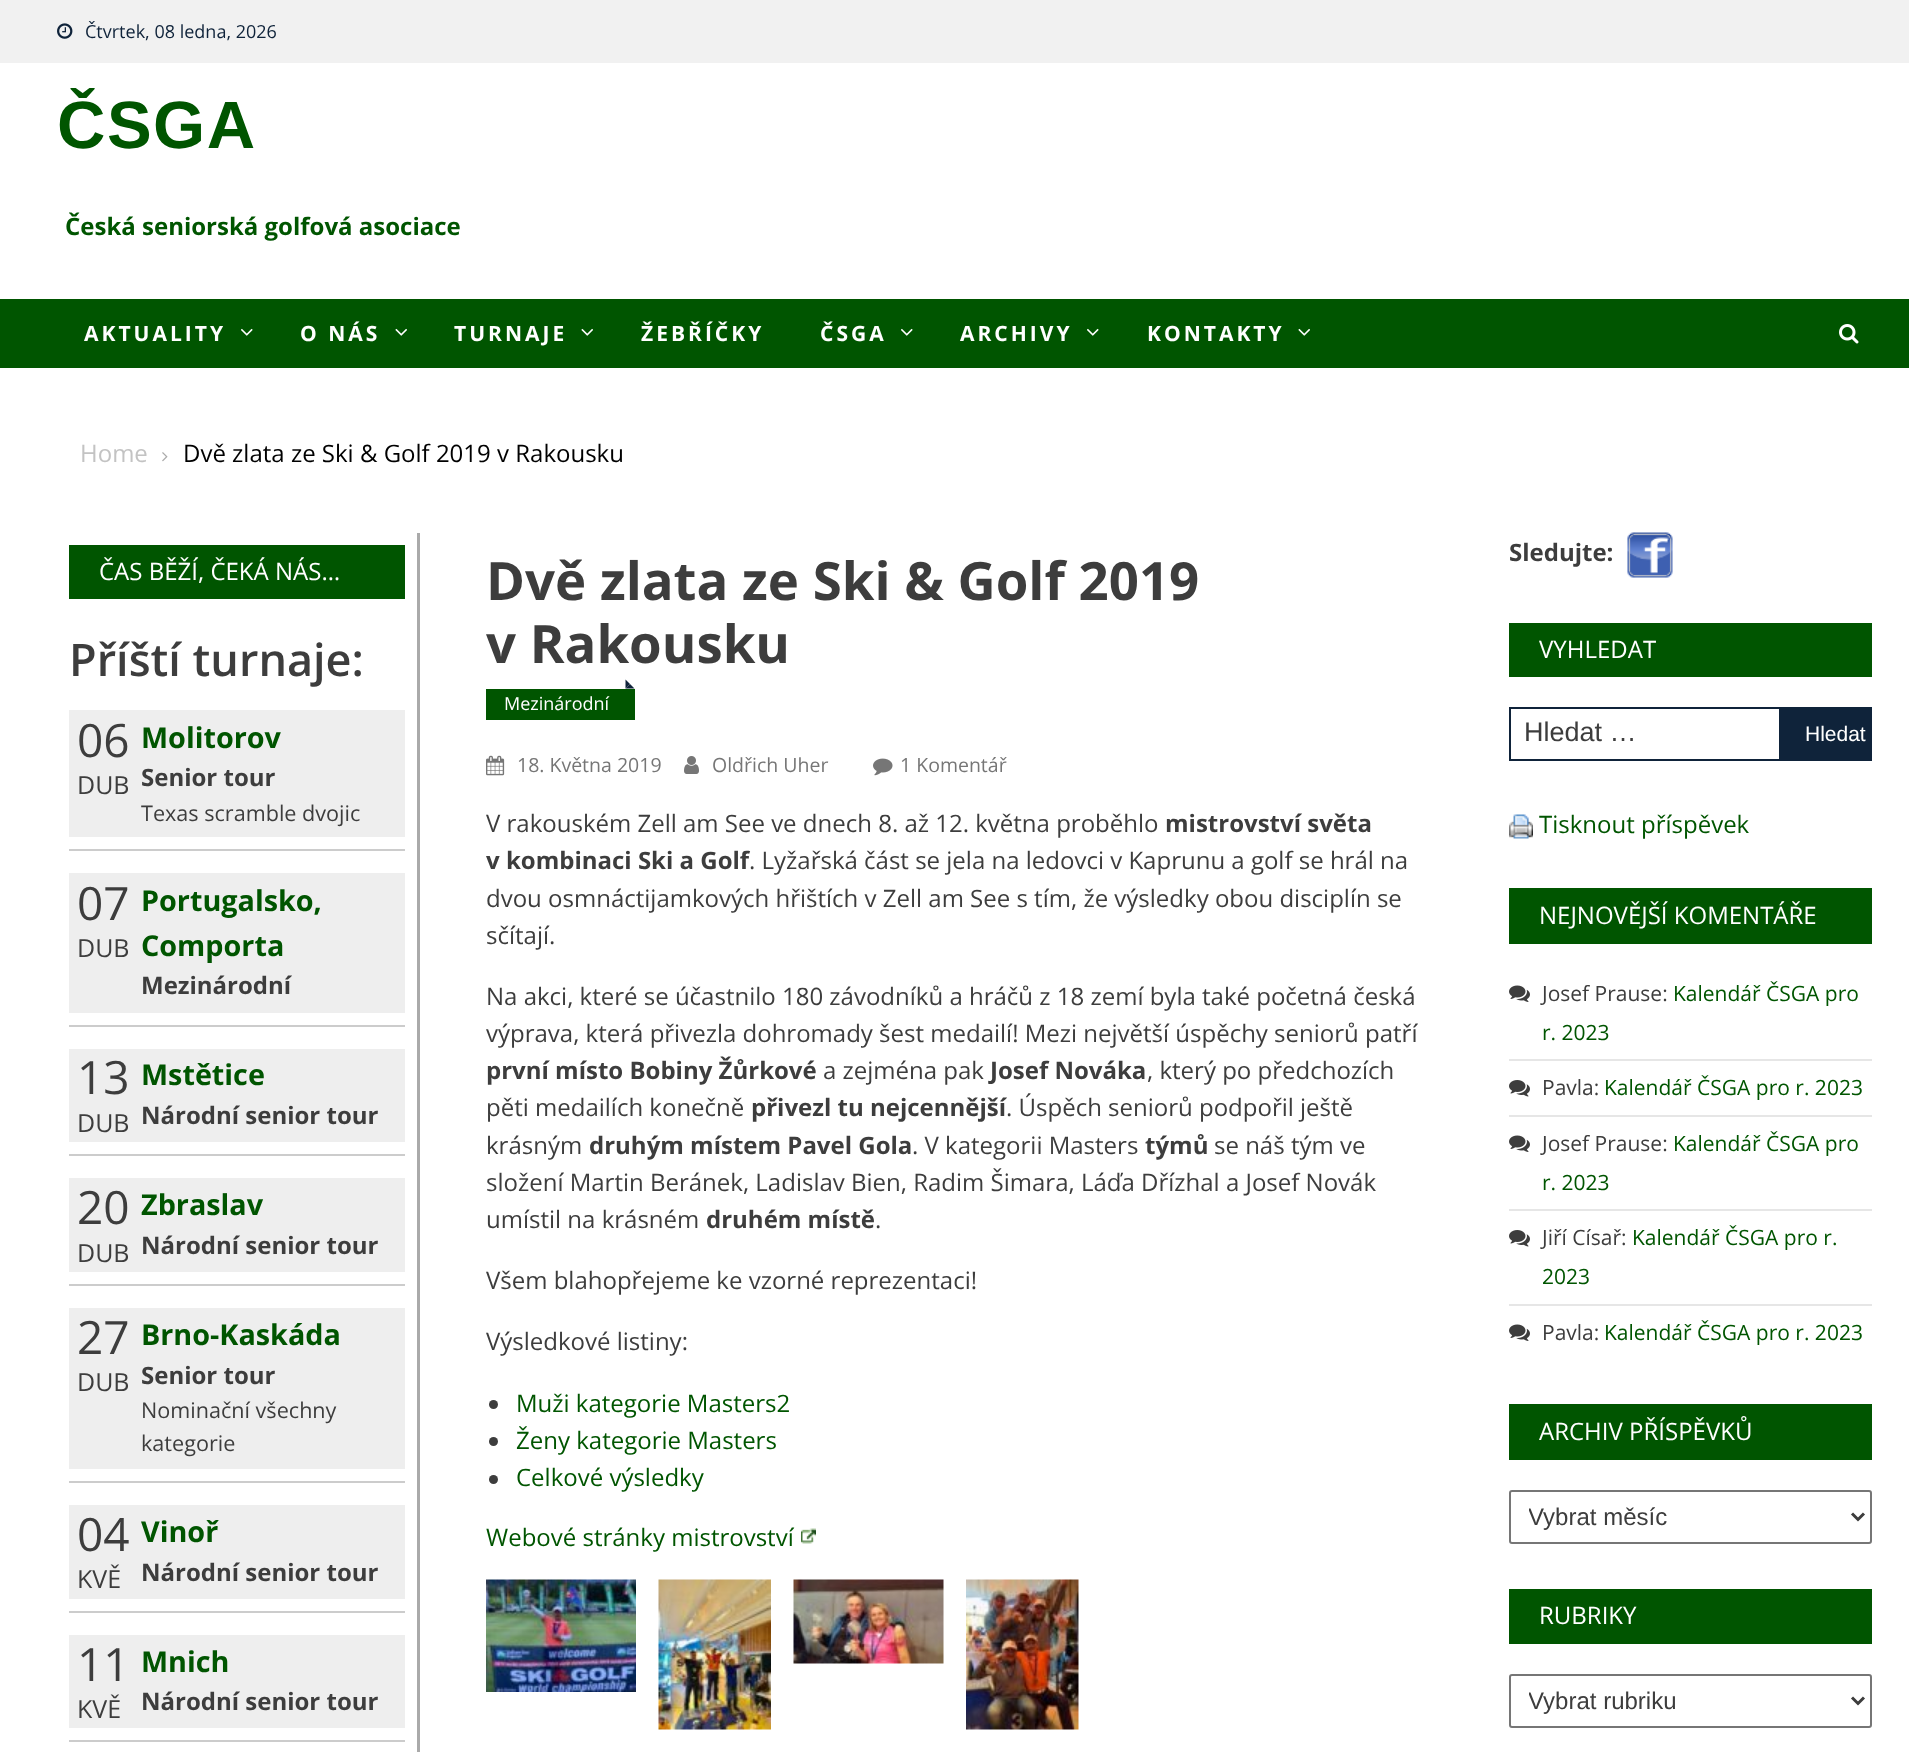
<!DOCTYPE html>
<meta charset="utf-8">
<style>body { margin: 0 } canvas { display: block }</style>
<canvas id="canvas" width="1909" height="1752"></canvas>
<script type="module">
  const canvas = document.getElementById("canvas");
  const ctx = canvas.getContext("2d");
  ctx.miterLimit = 4;
  ctx.fontKerning = "normal";
  async function loadImage(src) {
    const img = new Image();
    img.src = src;
    await img.decode();
    return img;
  }

  ctx.fillStyle = "#ffffff";
  ctx.fillRect(0, 0, 1909, 1752);
  ctx.fillStyle = "#f1f1f1";
  ctx.fillRect(0, 0, 1909, 63);
  ctx.drawImage(await loadImage("img1.png"), 57, 23, 16, 16);
  ctx.font = "18px Open Sans";
  ctx.fillStyle = "#0f233a";
  ctx.fillText("Čtvrtek, 08 ledna, 2026", 85, 38);
  ctx.letterSpacing = "1.5px";
  ctx.font = "bold 67px Liberation Sans";
  ctx.fillStyle = "#005500";
  ctx.fillText("ČSGA", 57, 148);
  ctx.letterSpacing = "0px";
  ctx.font = "bold 24px Open Sans";
  ctx.fillText("Česká seniorská golfová asociace", 65, 235);
  ctx.fillRect(0, 299, 1909, 69);
  ctx.letterSpacing = "3px";
  ctx.font = "bold 21px Open Sans";
  ctx.fillStyle = "#ffffff";
  ctx.fillText("AKTUALITY", 84, 341);
  ctx.drawImage(await loadImage("img2.png"), 241, 328, 12, 8);
  ctx.fillText("O NÁS", 300, 341);
  ctx.drawImage(await loadImage("img3.png"), 395, 328, 12, 8);
  ctx.fillText("TURNAJE", 454, 341);
  ctx.drawImage(await loadImage("img3.png"), 581, 328, 12, 8);
  ctx.fillText("ŽEBŘÍČKY", 641, 341);
  ctx.fillText("ČSGA", 820, 341);
  ctx.drawImage(await loadImage("img2.png"), 901, 328, 12, 8);
  ctx.fillText("ARCHIVY", 960, 341);
  ctx.drawImage(await loadImage("img2.png"), 1087, 328, 12, 8);
  ctx.fillText("KONTAKTY", 1147, 341);
  ctx.drawImage(await loadImage("img3.png"), 1298, 328, 12, 8);
  ctx.drawImage(await loadImage("img4.png"), 1839, 324, 20, 20);
  ctx.letterSpacing = "0px";
  ctx.font = "24px Open Sans";
  ctx.fillStyle = "#c3c3c3";
  ctx.fillText("Home", 80, 462);
  ctx.drawImage(await loadImage("img5.png"), 162, 452, 6, 10);
  ctx.fillStyle = "#000000";
  ctx.fillText("Dvě zlata ze Ski & Golf 2019 v Rakousku", 183, 462);
  ctx.fillStyle = "#aaaaaa";
  ctx.fillRect(417, 533, 3, 1219);
  ctx.fillStyle = "#005500";
  ctx.fillRect(69, 545, 336, 54);
  ctx.fillStyle = "#ffffff";
  ctx.fillText("ČAS BĚŽÍ, ČEKÁ NÁS…", 99, 580);
  ctx.font = "600 45px Open Sans";
  ctx.fillStyle = "#3d3d3d";
  ctx.fillText("Příští turnaje:", 69, 676);
  ctx.fillStyle = "#eeeeee";
  ctx.fillRect(69, 710, 336, 127);
  ctx.font = "46px Open Sans";
  ctx.fillStyle = "#3d3d3d";
  ctx.fillText("06", 77, 757);
  ctx.font = "25px Open Sans";
  ctx.fillText("DUB", 77, 794);
  ctx.font = "bold 28.75px Open Sans";
  ctx.fillStyle = "#005500";
  ctx.fillText("Molitorov", 141, 748);
  ctx.font = "bold 24px Open Sans";
  ctx.fillStyle = "#3d3d3d";
  ctx.fillText("Senior tour", 141, 786);
  ctx.font = "21.6px Open Sans";
  ctx.fillText("Texas scramble dvojic", 141, 821);
  ctx.fillStyle = "#cccccc";
  ctx.fillRect(69, 849, 336, 2);
  ctx.fillStyle = "#eeeeee";
  ctx.fillRect(69, 873, 336, 140);
  ctx.font = "46px Open Sans";
  ctx.fillStyle = "#3d3d3d";
  ctx.fillText("07", 77, 920);
  ctx.font = "25px Open Sans";
  ctx.fillText("DUB", 77, 957);
  ctx.font = "bold 28.75px Open Sans";
  ctx.fillStyle = "#005500";
  ctx.fillText("Portugalsko,", 141, 911);
  ctx.fillText("Comporta", 141, 956);
  ctx.font = "bold 24px Open Sans";
  ctx.fillStyle = "#3d3d3d";
  ctx.fillText("Mezinárodní", 141, 994);
  ctx.fillStyle = "#cccccc";
  ctx.fillRect(69, 1025, 336, 2);
  ctx.fillStyle = "#eeeeee";
  ctx.fillRect(69, 1049, 336, 93);
  ctx.font = "46px Open Sans";
  ctx.fillStyle = "#3d3d3d";
  ctx.fillText("13", 77, 1094);
  ctx.font = "25px Open Sans";
  ctx.fillText("DUB", 77, 1132);
  ctx.font = "bold 28.75px Open Sans";
  ctx.fillStyle = "#005500";
  ctx.fillText("Mstětice", 141, 1085);
  ctx.font = "bold 24px Open Sans";
  ctx.fillStyle = "#3d3d3d";
  ctx.fillText("Národní senior tour", 141, 1124);
  ctx.fillStyle = "#cccccc";
  ctx.fillRect(69, 1154, 336, 2);
  ctx.fillStyle = "#eeeeee";
  ctx.fillRect(69, 1178, 336, 94);
  ctx.font = "46px Open Sans";
  ctx.fillStyle = "#3d3d3d";
  ctx.fillText("20", 77, 1224);
  ctx.font = "25px Open Sans";
  ctx.fillText("DUB", 77, 1262);
  ctx.font = "bold 28.75px Open Sans";
  ctx.fillStyle = "#005500";
  ctx.fillText("Zbraslav", 141, 1215);
  ctx.font = "bold 24px Open Sans";
  ctx.fillStyle = "#3d3d3d";
  ctx.fillText("Národní senior tour", 141, 1254);
  ctx.fillStyle = "#cccccc";
  ctx.fillRect(69, 1284, 336, 2);
  ctx.fillStyle = "#eeeeee";
  ctx.fillRect(69, 1308, 336, 161);
  ctx.font = "46px Open Sans";
  ctx.fillStyle = "#3d3d3d";
  ctx.fillText("27", 77, 1354);
  ctx.font = "25px Open Sans";
  ctx.fillText("DUB", 77, 1391);
  ctx.font = "bold 28.75px Open Sans";
  ctx.fillStyle = "#005500";
  ctx.fillText("Brno-Kaskáda", 141, 1345);
  ctx.font = "bold 24px Open Sans";
  ctx.fillStyle = "#3d3d3d";
  ctx.fillText("Senior tour", 141, 1384);
  ctx.font = "21.6px Open Sans";
  ctx.fillText("Nominační všechny", 141, 1418);
  ctx.fillText("kategorie", 141, 1451);
  ctx.fillStyle = "#cccccc";
  ctx.fillRect(69, 1481, 336, 2);
  ctx.fillStyle = "#eeeeee";
  ctx.fillRect(69, 1505, 336, 94);
  ctx.font = "46px Open Sans";
  ctx.fillStyle = "#3d3d3d";
  ctx.fillText("04", 77, 1551);
  ctx.font = "25px Open Sans";
  ctx.fillText("KVĚ", 77, 1588);
  ctx.font = "bold 28.75px Open Sans";
  ctx.fillStyle = "#005500";
  ctx.fillText("Vinoř", 141, 1542);
  ctx.font = "bold 24px Open Sans";
  ctx.fillStyle = "#3d3d3d";
  ctx.fillText("Národní senior tour", 141, 1581);
  ctx.fillStyle = "#cccccc";
  ctx.fillRect(69, 1611, 336, 2);
  ctx.fillStyle = "#eeeeee";
  ctx.fillRect(69, 1635, 336, 93);
  ctx.font = "46px Open Sans";
  ctx.fillStyle = "#3d3d3d";
  ctx.fillText("11", 77, 1681);
  ctx.font = "25px Open Sans";
  ctx.fillText("KVĚ", 77, 1718);
  ctx.font = "bold 28.75px Open Sans";
  ctx.fillStyle = "#005500";
  ctx.fillText("Mnich", 141, 1672);
  ctx.font = "bold 24px Open Sans";
  ctx.fillStyle = "#3d3d3d";
  ctx.fillText("Národní senior tour", 141, 1710);
  ctx.fillStyle = "#cccccc";
  ctx.fillRect(69, 1740, 336, 2);
  ctx.font = "bold 52.75px Open Sans";
  ctx.fillStyle = "#3d3d3d";
  ctx.fillText("Dvě zlata ze Ski & Golf 2019", 486, 600);
  ctx.fillText("v Rakousku", 486, 663);
  ctx.fillStyle = "#005500";
  ctx.fillRect(486, 689, 149, 31);
  ctx.fillStyle = "#0f233a";
  ctx.beginPath();
  ctx.moveTo(634.5, 688.5);
  ctx.lineTo(625.5, 688.5);
  ctx.lineTo(630, 684);
  ctx.closePath();
  ctx.fill();
  ctx.beginPath();
  ctx.moveTo(625.5, 688.5);
  ctx.lineTo(625.5, 679.5);
  ctx.lineTo(630, 684);
  ctx.closePath();
  ctx.fill();
  ctx.font = "18px Open Sans";
  ctx.fillStyle = "#ffffff";
  ctx.fillText("Mezinárodní", 504, 710);
  ctx.drawImage(await loadImage("img6.png"), 486, 755, 19, 21);
  ctx.font = "19.5px Open Sans";
  ctx.fillStyle = "#767676";
  ctx.fillText("18. Května 2019", 517, 772);
  ctx.drawImage(await loadImage("img7.png"), 684, 756, 15, 18);
  ctx.fillText("Oldřich Uher", 712, 772);
  ctx.drawImage(await loadImage("img8.png"), 873, 758, 20, 18);
  ctx.fillText("1 Komentář", 900, 772);
  ctx.font = "24px Open Sans";
  ctx.fillStyle = "#3d3d3d";
  ctx.fillText("V rakouském Zell am See ve dnech 8. až 12. května proběhlo", 486, 832);
  ctx.font = "bold 24px Open Sans";
  ctx.fillText("mistrovství světa", 1165, 832);
  ctx.fillText("v kombinaci Ski a Golf", 486, 869);
  ctx.font = "24px Open Sans";
  ctx.fillText(". Lyžařská část se jela na ledovci v Kaprunu a golf se hrál na", 749, 869);
  ctx.fillText("dvou osmnáctijamkových hřištích v Zell am See s tím, že výsledky obou disciplín se", 486, 907);
  ctx.fillText("sčítají.", 486, 944);
  ctx.fillText("Na akci, které se účastnilo 180 závodníků a hráčů z 18 zemí byla také početná česká", 486, 1005);
  ctx.fillText("výprava, která přivezla dohromady šest medailí! Mezi největší úspěchy seniorů patří", 486, 1042);
  ctx.font = "bold 24px Open Sans";
  ctx.fillText("první místo Bobiny Žůrkové", 486, 1079);
  ctx.font = "24px Open Sans";
  ctx.fillText("a zejména pak", 823, 1079);
  ctx.font = "bold 24px Open Sans";
  ctx.fillText("Josef Nováka", 990, 1079);
  ctx.font = "24px Open Sans";
  ctx.fillText(", který po předchozích", 1147, 1079);
  ctx.fillText("pěti medailích konečně", 486, 1116);
  ctx.font = "bold 24px Open Sans";
  ctx.fillText("přivezl tu nejcennější", 751, 1116);
  ctx.font = "24px Open Sans";
  ctx.fillText(". Úspěch seniorů podpořil ještě", 1006, 1116);
  ctx.fillText("krásným", 486, 1154);
  ctx.font = "bold 24px Open Sans";
  ctx.fillText("druhým místem Pavel Gola", 589, 1154);
  ctx.font = "24px Open Sans";
  ctx.fillText(". V kategorii Masters", 912, 1154);
  ctx.font = "bold 24px Open Sans";
  ctx.fillText("týmů", 1145, 1154);
  ctx.font = "24px Open Sans";
  ctx.fillText("se náš tým ve", 1214, 1154);
  ctx.fillText("složení Martin Beránek, Ladislav Bien, Radim Šimara, Láďa Dřízhal a Josef Novák", 486, 1191);
  ctx.fillText("umístil na krásném", 486, 1228);
  ctx.font = "bold 24px Open Sans";
  ctx.fillText("druhém místě", 706, 1228);
  ctx.font = "24px Open Sans";
  ctx.fillText(".", 875, 1228);
  ctx.fillText("Všem blahopřejeme ke vzorné reprezentaci!", 486, 1289);
  ctx.fillText("Výsledkové listiny:", 486, 1350);
  ctx.beginPath();
  ctx.arc(493.5, 1404.5, 4.5, 0, Math.PI * 2);
  ctx.fill();
  ctx.fillStyle = "#005500";
  ctx.fillText("Muži kategorie Masters2", 516, 1412);
  ctx.fillStyle = "#3d3d3d";
  ctx.beginPath();
  ctx.arc(493.5, 1441.5, 4.5, 0, Math.PI * 2);
  ctx.fill();
  ctx.fillStyle = "#005500";
  ctx.fillText("Ženy kategorie Masters", 516, 1449);
  ctx.fillStyle = "#3d3d3d";
  ctx.beginPath();
  ctx.arc(493.5, 1479.5, 4.5, 0, Math.PI * 2);
  ctx.fill();
  ctx.fillStyle = "#005500";
  ctx.fillText("Celkové výsledky", 516, 1486);
  ctx.fillText("Webové stránky mistrovství", 486, 1546);
  ctx.drawImage(await loadImage("img9.png"), 801, 1528, 15, 16);
  ctx.drawImage(await loadImage("img10.png"), 486, 1579, 150, 113);
  ctx.drawImage(await loadImage("img11.png"), 658, 1579, 113, 151);
  ctx.drawImage(await loadImage("img12.png"), 793, 1579, 151, 85);
  ctx.drawImage(await loadImage("img13.png"), 966, 1579, 113, 151);
  ctx.font = "bold 24px Open Sans";
  ctx.fillStyle = "#3d3d3d";
  ctx.fillText("Sledujte:", 1509, 561);
  ctx.drawImage(await loadImage("img14.png"), 1627, 532, 46, 46);
  ctx.fillStyle = "#005500";
  ctx.fillRect(1509, 623, 363, 54);
  ctx.font = "24px Open Sans";
  ctx.fillStyle = "#ffffff";
  ctx.fillText("VYHLEDAT", 1539, 658);
  ctx.strokeStyle = "#0f233a";
  ctx.lineWidth = 2;
  ctx.strokeRect(1510, 708, 270, 52);
  ctx.font = "27px Liberation Sans";
  ctx.fillStyle = "#3d3d3d";
  ctx.fillText("Hledat …", 1524, 741);
  ctx.fillStyle = "#0f233a";
  ctx.fillRect(1781, 707, 91, 54);
  ctx.font = "21px Liberation Sans";
  ctx.fillStyle = "#ffffff";
  ctx.fillText("Hledat", 1805, 741);
  ctx.drawImage(await loadImage("img15.png"), 1509, 814, 24, 25);
  ctx.font = "24px Open Sans";
  ctx.fillStyle = "#005500";
  ctx.fillText("Tisknout příspěvek", 1539, 833);
  ctx.fillRect(1509, 888, 363, 56);
  ctx.fillStyle = "#ffffff";
  ctx.fillText("NEJNOVĚJŠÍ KOMENTÁŘE", 1539, 924);
  ctx.fillStyle = "#e6e6e6";
  ctx.fillRect(1509, 1059, 363, 2);
  ctx.drawImage(await loadImage("img16.png"), 1509, 985, 21, 17);
  ctx.font = "21px Open Sans";
  ctx.fillStyle = "#3d3d3d";
  ctx.fillText("Josef Prause:", 1542, 1001);
  ctx.fillStyle = "#005500";
  ctx.fillText("Kalendář ČSGA pro", 1673, 1001);
  ctx.fillText("r. 2023", 1542, 1040);
  ctx.fillStyle = "#e6e6e6";
  ctx.fillRect(1509, 1115, 363, 2);
  ctx.drawImage(await loadImage("img17.png"), 1509, 1080, 21, 17);
  ctx.fillStyle = "#3d3d3d";
  ctx.fillText("Pavla:", 1542, 1095);
  ctx.fillStyle = "#005500";
  ctx.fillText("Kalendář ČSGA pro r. 2023", 1604, 1095);
  ctx.fillStyle = "#e6e6e6";
  ctx.fillRect(1509, 1209, 363, 2);
  ctx.drawImage(await loadImage("img16.png"), 1509, 1135, 21, 17);
  ctx.fillStyle = "#3d3d3d";
  ctx.fillText("Josef Prause:", 1542, 1151);
  ctx.fillStyle = "#005500";
  ctx.fillText("Kalendář ČSGA pro", 1673, 1151);
  ctx.fillText("r. 2023", 1542, 1190);
  ctx.fillStyle = "#e6e6e6";
  ctx.fillRect(1509, 1304, 363, 2);
  ctx.drawImage(await loadImage("img17.png"), 1509, 1230, 21, 17);
  ctx.fillStyle = "#3d3d3d";
  ctx.fillText("Jiří Císař:", 1542, 1245);
  ctx.fillStyle = "#005500";
  ctx.fillText("Kalendář ČSGA pro r.", 1632, 1245);
  ctx.fillText("2023", 1542, 1284);
  ctx.drawImage(await loadImage("img16.png"), 1509, 1324, 21, 17);
  ctx.fillStyle = "#3d3d3d";
  ctx.fillText("Pavla:", 1542, 1340);
  ctx.fillStyle = "#005500";
  ctx.fillText("Kalendář ČSGA pro r. 2023", 1604, 1340);
  ctx.fillRect(1509, 1404, 363, 56);
  ctx.font = "24px Open Sans";
  ctx.fillStyle = "#ffffff";
  ctx.fillText("ARCHIV PŘÍSPĚVKŮ", 1539, 1440);
  ctx.beginPath();
  ctx.roundRect(1510, 1491, 361, 52, 2);
  ctx.strokeStyle = "#767676";
  ctx.stroke();
  ctx.beginPath();
  ctx.moveTo(1852, 1513.5);
  ctx.lineTo(1858, 1519.5);
  ctx.lineTo(1864, 1513.5);
  ctx.strokeStyle = "#3d3d3d";
  ctx.lineWidth = 3;
  ctx.stroke();
  ctx.save();
  ctx.beginPath();
  ctx.rect(1529, 1502, 306, 28);
  ctx.clip();
  ctx.font = "24px Liberation Sans";
  ctx.fillStyle = "#3d3d3d";
  ctx.fillText("Vybrat měsíc", 1528, 1525);
  ctx.restore();
  ctx.fillStyle = "#005500";
  ctx.fillRect(1509, 1589, 363, 55);
  ctx.fillStyle = "#ffffff";
  ctx.fillText("RUBRIKY", 1539, 1624);
  ctx.beginPath();
  ctx.roundRect(1510, 1675, 361, 52, 2);
  ctx.strokeStyle = "#767676";
  ctx.lineWidth = 2;
  ctx.stroke();
  ctx.beginPath();
  ctx.moveTo(1852, 1697.5);
  ctx.lineTo(1858, 1703.5);
  ctx.lineTo(1864, 1697.5);
  ctx.strokeStyle = "#3d3d3d";
  ctx.lineWidth = 3;
  ctx.stroke();
  ctx.save();
  ctx.beginPath();
  ctx.rect(1529, 1686, 306, 29);
  ctx.clip();
  ctx.font = "24px Liberation Sans";
  ctx.fillStyle = "#3d3d3d";
  ctx.fillText("Vybrat rubriku", 1528, 1709);
  ctx.restore();
</script>
